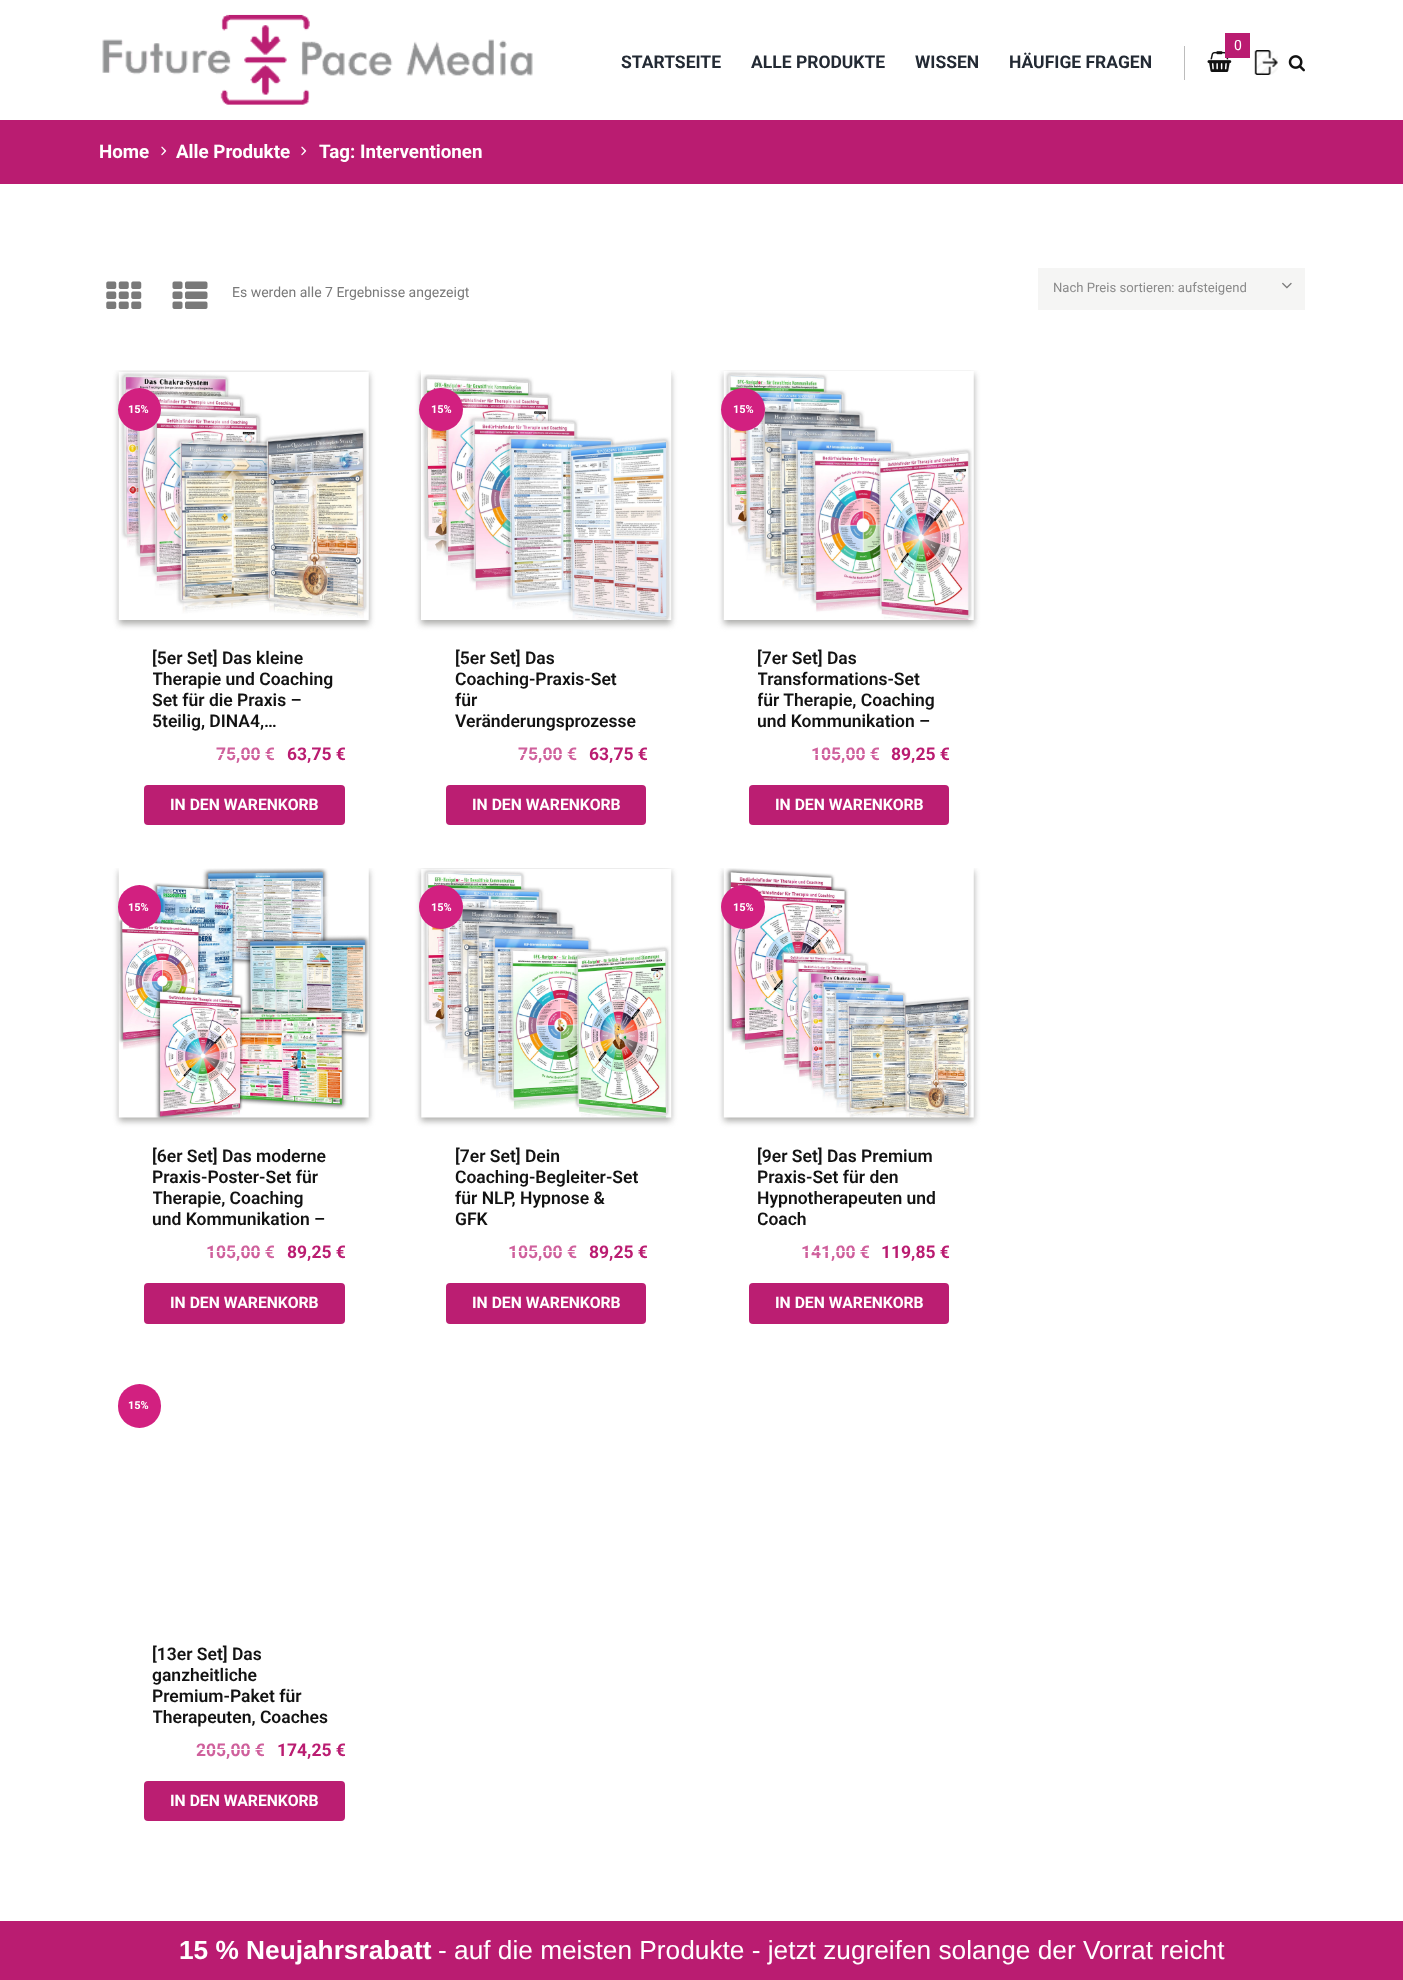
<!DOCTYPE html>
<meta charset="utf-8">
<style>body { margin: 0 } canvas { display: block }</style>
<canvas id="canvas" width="1403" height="1980"></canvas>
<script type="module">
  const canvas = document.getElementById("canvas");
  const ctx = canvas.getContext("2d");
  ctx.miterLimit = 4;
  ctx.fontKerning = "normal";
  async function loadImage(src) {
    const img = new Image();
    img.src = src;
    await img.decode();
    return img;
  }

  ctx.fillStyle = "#ffffff";
  ctx.fillRect(0, 0, 1403, 1980);
  ctx.drawImage(await loadImage("img1.png"), 102, 14, 431, 91);
  ctx.drawImage(await loadImage("img2.png"), 1207, 51, 25, 21);
  ctx.fillStyle = "#ba1c71";
  ctx.fillRect(1225, 33, 25, 25);
  ctx.font = "14px Roboto";
  ctx.fillStyle = "#ffffff";
  ctx.fillText("0", 1234, 50);
  ctx.fillStyle = "#bcbcbc";
  ctx.fillRect(1184, 46, 1, 34);
  ctx.font = "bold 17.5px Roboto";
  ctx.fillStyle = "#232a34";
  ctx.fillText("STARTSEITE", 621, 68);
  ctx.fillText("ALLE PRODUKTE", 751, 68);
  ctx.fillText("WISSEN", 915, 68);
  ctx.fillText("HÄUFIGE FRAGEN", 1009, 68);
  ctx.drawImage(await loadImage("img3.png"), 1254, 50, 24, 25);
  ctx.drawImage(await loadImage("img4.png"), 1288, 55, 17, 17);
  ctx.fillStyle = "#ba1c71";
  ctx.fillRect(0, 120, 1403, 64);
  ctx.font = "bold 18.75px Roboto";
  ctx.fillStyle = "#ffffff";
  ctx.fillText("Home", 99, 158);
  ctx.drawImage(await loadImage("img5.png"), 161, 146, 6, 10);
  ctx.fillText("Alle Produkte", 176, 158);
  ctx.drawImage(await loadImage("img5.png"), 301, 146, 6, 10);
  ctx.fillText("Tag: Interventionen", 319, 158);
  ctx.drawImage(await loadImage("img6.png"), 106, 281, 36, 28);
  ctx.drawImage(await loadImage("img7.png"), 172, 281, 36, 28);
  ctx.font = "14px Roboto";
  ctx.fillStyle = "#797979";
  ctx.fillText("Es werden alle 7 Ergebnisse angezeigt", 232, 297);
  ctx.fillStyle = "#f5f5f4";
  ctx.fillRect(1038, 268, 267, 42);
  ctx.font = "13.1px Roboto";
  ctx.fillStyle = "#8a8a8a";
  ctx.fillText("Nach Preis sortieren: aufsteigend", 1053, 292);
  ctx.drawImage(await loadImage("img8.png"), 1282, 282, 10, 7);
  ctx.save();
  ctx.beginPath();
  ctx.rect(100, 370, 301, 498);
  ctx.clip();
  ctx.fillStyle = "#adadab";
  ctx.filter = "blur(3px)";
  ctx.beginPath();
  ctx.rect(119, 374, 250, 250);
  ctx.fill();
  ctx.filter = "none";
  ctx.restore();
  ctx.drawImage(await loadImage("img9.png"), 118, 372, 251, 248);
  ctx.fillStyle = "#d22080";
  ctx.beginPath();
  ctx.arc(139.5, 409.5, 21.5, 0, Math.PI * 2);
  ctx.fill();
  ctx.font = "bold 11px Roboto";
  ctx.fillStyle = "#ffffff";
  ctx.fillText("15%", 128, 413);
  ctx.font = "600 17.5px Roboto";
  ctx.fillStyle = "#121212";
  ctx.fillText("[5er Set] Das kleine", 152, 664);
  ctx.save();
  ctx.beginPath();
  ctx.rect(153, 648, 183, 87);
  ctx.clip();
  ctx.fillText("Therapie und Coaching", 152, 685);
  ctx.restore();
  ctx.fillText("Set für die Praxis –", 152, 706);
  ctx.fillText("5teilig, DINA4,…", 152, 727);
  ctx.font = "bold 17.5px Roboto";
  ctx.fillStyle = "#cf609c";
  ctx.fillText("75,00 €", 216, 760);
  ctx.fillStyle = "#fefefe";
  ctx.fillRect(216, 754, 59, 1);
  ctx.fillStyle = "#ba1c71";
  ctx.fillText("63,75 €", 287, 760);
  ctx.fillStyle = "#bb1e72";
  ctx.beginPath();
  ctx.roundRect(144, 785, 201, 40, 4);
  ctx.fill();
  ctx.font = "bold 15.75px Roboto";
  ctx.fillStyle = "#ffffff";
  ctx.fillText("IN DEN WARENKORB", 170, 810);
  ctx.save();
  ctx.beginPath();
  ctx.rect(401, 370, 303, 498);
  ctx.clip();
  ctx.beginPath();
  ctx.moveTo(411, 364);
  ctx.lineTo(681, 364);
  ctx.lineTo(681, 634);
  ctx.lineTo(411, 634);
  ctx.closePath();
  ctx.moveTo(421, 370);
  ctx.lineTo(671, 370);
  ctx.lineTo(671, 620);
  ctx.lineTo(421, 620);
  ctx.closePath();
  ctx.clip("evenodd");
  ctx.fillStyle = "#adadab";
  ctx.filter = "blur(3px)";
  ctx.beginPath();
  ctx.rect(421, 374, 250, 250);
  ctx.fill();
  ctx.filter = "none";
  ctx.restore();
  ctx.drawImage(await loadImage("img10.png"), 421, 374, 251, 246);
  ctx.fillStyle = "#d22080";
  ctx.beginPath();
  ctx.roundRect(419, 388, 44, 43, 21.5);
  ctx.fill();
  ctx.font = "bold 11px Roboto";
  ctx.fillStyle = "#ffffff";
  ctx.fillText("15%", 431, 413);
  ctx.font = "600 17.5px Roboto";
  ctx.fillStyle = "#121212";
  ctx.fillText("[5er Set] Das", 455, 664);
  ctx.fillText("Coaching-Praxis-Set", 455, 685);
  ctx.fillText("für", 455, 706);
  ctx.fillText("Veränderungsprozesse", 455, 727);
  ctx.font = "bold 17.5px Roboto";
  ctx.fillStyle = "#cf609c";
  ctx.fillText("75,00", 518, 760);
  ctx.fillStyle = "#fefefe";
  ctx.fillRect(519, 754, 49, 1);
  ctx.fillStyle = "#cf609c";
  ctx.fillText("€", 567, 760);
  ctx.fillStyle = "#fefefe";
  ctx.fillRect(568, 754, 10, 1);
  ctx.fillStyle = "#ba1c71";
  ctx.fillText("63,75 €", 589, 760);
  ctx.fillStyle = "#bb1e72";
  ctx.beginPath();
  ctx.roundRect(446, 785, 200, 40, 4);
  ctx.fill();
  ctx.font = "bold 15.75px Roboto";
  ctx.fillStyle = "#ffffff";
  ctx.fillText("IN DEN WARENKORB", 472, 810);
  ctx.save();
  ctx.beginPath();
  ctx.rect(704, 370, 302, 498);
  ctx.clip();
  ctx.fillStyle = "#adadab";
  ctx.filter = "blur(3px)";
  ctx.beginPath();
  ctx.rect(724, 374, 250, 250);
  ctx.fill();
  ctx.filter = "none";
  ctx.restore();
  ctx.drawImage(await loadImage("img11.png"), 723, 371, 251, 249);
  ctx.fillStyle = "#d22080";
  ctx.beginPath();
  ctx.roundRect(721, 388, 44, 43, 21.5);
  ctx.fill();
  ctx.font = "bold 11px Roboto";
  ctx.fillStyle = "#ffffff";
  ctx.fillText("15%", 733, 413);
  ctx.font = "600 17.5px Roboto";
  ctx.fillStyle = "#121212";
  ctx.fillText("[7er Set] Das", 757, 664);
  ctx.save();
  ctx.beginPath();
  ctx.rect(758, 648, 183, 87);
  ctx.clip();
  ctx.fillText("Transformations-Set", 757, 685);
  ctx.fillText("für Therapie, Coaching", 757, 706);
  ctx.fillText("und Kommunikation –", 757, 727);
  ctx.restore();
  ctx.font = "bold 17.5px Roboto";
  ctx.fillStyle = "#cf609c";
  ctx.fillText("105,00 €", 811, 760);
  ctx.fillStyle = "#fefefe";
  ctx.fillRect(810, 754, 70, 1);
  ctx.fillStyle = "#ba1c71";
  ctx.fillText("89,25 €", 891, 760);
  ctx.fillStyle = "#bb1e72";
  ctx.beginPath();
  ctx.roundRect(749, 785, 200, 40, 4);
  ctx.fill();
  ctx.font = "bold 15.75px Roboto";
  ctx.fillStyle = "#ffffff";
  ctx.fillText("IN DEN WARENKORB", 775, 810);
  ctx.save();
  ctx.beginPath();
  ctx.rect(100, 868, 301, 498);
  ctx.clip();
  ctx.fillStyle = "#adadab";
  ctx.filter = "blur(3px)";
  ctx.beginPath();
  ctx.rect(119, 871, 250, 250);
  ctx.fill();
  ctx.filter = "none";
  ctx.restore();
  ctx.drawImage(await loadImage("img12.png"), 118, 868, 251, 250);
  ctx.fillStyle = "#d22080";
  ctx.beginPath();
  ctx.roundRect(118, 885, 43, 44, 21.5);
  ctx.fill();
  ctx.font = "bold 11px Roboto";
  ctx.fillStyle = "#ffffff";
  ctx.fillText("15%", 128, 911);
  ctx.font = "600 17.5px Roboto";
  ctx.fillStyle = "#121212";
  ctx.fillText("[6er Set] Das moderne", 152, 1162);
  ctx.fillText("Praxis-Poster-Set für", 152, 1183);
  ctx.save();
  ctx.beginPath();
  ctx.rect(153, 1146, 183, 88);
  ctx.clip();
  ctx.fillText("Therapie, Coaching", 152, 1204);
  ctx.restore();
  ctx.fillText("und Kommunikation –", 152, 1225);
  ctx.font = "bold 17.5px Roboto";
  ctx.fillStyle = "#cf609c";
  ctx.fillText("105,00 €", 206, 1258);
  ctx.fillStyle = "#fefefe";
  ctx.fillRect(206, 1251, 69, 1);
  ctx.fillStyle = "#ba1c71";
  ctx.fillText("89,25 €", 287, 1258);
  ctx.fillStyle = "#bb1e72";
  ctx.beginPath();
  ctx.roundRect(144, 1283, 201, 41, 4);
  ctx.fill();
  ctx.font = "bold 15.75px Roboto";
  ctx.fillStyle = "#ffffff";
  ctx.fillText("IN DEN WARENKORB", 170, 1308);
  ctx.save();
  ctx.beginPath();
  ctx.rect(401, 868, 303, 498);
  ctx.clip();
  ctx.fillStyle = "#adadab";
  ctx.filter = "blur(3px)";
  ctx.beginPath();
  ctx.rect(421, 871, 250, 250);
  ctx.fill();
  ctx.filter = "none";
  ctx.restore();
  ctx.drawImage(await loadImage("img13.png"), 421, 869, 251, 249);
  ctx.fillStyle = "#d22080";
  ctx.beginPath();
  ctx.arc(441, 907, 22, 0, Math.PI * 2);
  ctx.fill();
  ctx.font = "bold 11px Roboto";
  ctx.fillStyle = "#ffffff";
  ctx.fillText("15%", 431, 911);
  ctx.font = "600 17.5px Roboto";
  ctx.fillStyle = "#121212";
  ctx.fillText("[7er Set] Dein", 455, 1162);
  ctx.fillText("Coaching-Begleiter-Set", 455, 1183);
  ctx.fillText("für NLP, Hypnose &", 455, 1204);
  ctx.fillText("GFK", 455, 1225);
  ctx.font = "bold 17.5px Roboto";
  ctx.fillStyle = "#cf609c";
  ctx.fillText("105,00", 508, 1258);
  ctx.fillStyle = "#fefefe";
  ctx.fillRect(509, 1251, 59, 1);
  ctx.fillStyle = "#cf609c";
  ctx.fillText("€", 567, 1258);
  ctx.fillStyle = "#fefefe";
  ctx.fillRect(568, 1251, 10, 1);
  ctx.fillStyle = "#ba1c71";
  ctx.fillText("89,25 €", 589, 1258);
  ctx.fillStyle = "#bb1e72";
  ctx.beginPath();
  ctx.roundRect(446, 1283, 200, 41, 4);
  ctx.fill();
  ctx.font = "bold 15.75px Roboto";
  ctx.fillStyle = "#ffffff";
  ctx.fillText("IN DEN WARENKORB", 472, 1308);
  ctx.save();
  ctx.beginPath();
  ctx.rect(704, 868, 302, 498);
  ctx.clip();
  ctx.fillStyle = "#adadab";
  ctx.filter = "blur(3px)";
  ctx.beginPath();
  ctx.rect(724, 871, 250, 250);
  ctx.fill();
  ctx.filter = "none";
  ctx.restore();
  ctx.drawImage(await loadImage("img14.png"), 723, 868, 251, 250);
  ctx.fillStyle = "#d22080";
  ctx.beginPath();
  ctx.arc(743, 907, 22, 0, Math.PI * 2);
  ctx.fill();
  ctx.font = "bold 11px Roboto";
  ctx.fillStyle = "#ffffff";
  ctx.fillText("15%", 733, 911);
  ctx.font = "600 17.5px Roboto";
  ctx.fillStyle = "#121212";
  ctx.fillText("[9er Set] Das Premium", 757, 1162);
  ctx.fillText("Praxis-Set für den", 757, 1183);
  ctx.fillText("Hypnotherapeuten und", 757, 1204);
  ctx.save();
  ctx.beginPath();
  ctx.rect(758, 1146, 183, 88);
  ctx.clip();
  ctx.fillText("Coach", 757, 1225);
  ctx.restore();
  ctx.font = "bold 17.5px Roboto";
  ctx.fillStyle = "#cf609c";
  ctx.fillText("141,00 €", 801, 1258);
  ctx.fillStyle = "#fefefe";
  ctx.fillRect(800, 1251, 70, 1);
  ctx.fillStyle = "#ba1c71";
  ctx.fillText("119,85 €", 881, 1258);
  ctx.fillStyle = "#bb1e72";
  ctx.beginPath();
  ctx.roundRect(749, 1283, 200, 41, 4);
  ctx.fill();
  ctx.font = "bold 15.75px Roboto";
  ctx.fillStyle = "#ffffff";
  ctx.fillText("IN DEN WARENKORB", 775, 1308);
  ctx.fillStyle = "#d22080";
  ctx.beginPath();
  ctx.roundRect(118, 1384, 43, 44, 21.5);
  ctx.fill();
  ctx.font = "bold 11px Roboto";
  ctx.fillStyle = "#ffffff";
  ctx.fillText("15%", 128, 1409);
  ctx.font = "600 17.5px Roboto";
  ctx.fillStyle = "#121212";
  ctx.fillText("[13er Set] Das", 152, 1660);
  ctx.fillText("ganzheitliche", 152, 1681);
  ctx.fillText("Premium-Paket für", 152, 1702);
  ctx.save();
  ctx.beginPath();
  ctx.rect(153, 1644, 183, 87);
  ctx.clip();
  ctx.fillText("Therapeuten, Coaches", 152, 1723);
  ctx.restore();
  ctx.font = "bold 17.5px Roboto";
  ctx.fillStyle = "#cf609c";
  ctx.fillText("205,00 €", 196, 1756);
  ctx.fillStyle = "#fefefe";
  ctx.fillRect(196, 1749, 69, 1);
  ctx.fillStyle = "#ba1c71";
  ctx.fillText("174,25 €", 277, 1756);
  ctx.fillStyle = "#bb1e72";
  ctx.beginPath();
  ctx.roundRect(144, 1781, 201, 40, 4);
  ctx.fill();
  ctx.font = "bold 15.75px Roboto";
  ctx.fillStyle = "#ffffff";
  ctx.fillText("IN DEN WARENKORB", 170, 1806);
  ctx.fillStyle = "#ba1c71";
  ctx.fillRect(0, 1921, 1403, 59);
  ctx.font = "bold 26.25px Liberation Sans";
  ctx.fillStyle = "#ffffff";
  ctx.fillText("15 % Neujahrsrabatt", 179, 1959);
  ctx.font = "26.25px Liberation Sans";
  ctx.fillText("- auf die meisten Produkte - jetzt zugreifen solange der Vorrat reicht", 438, 1959);
</script>
